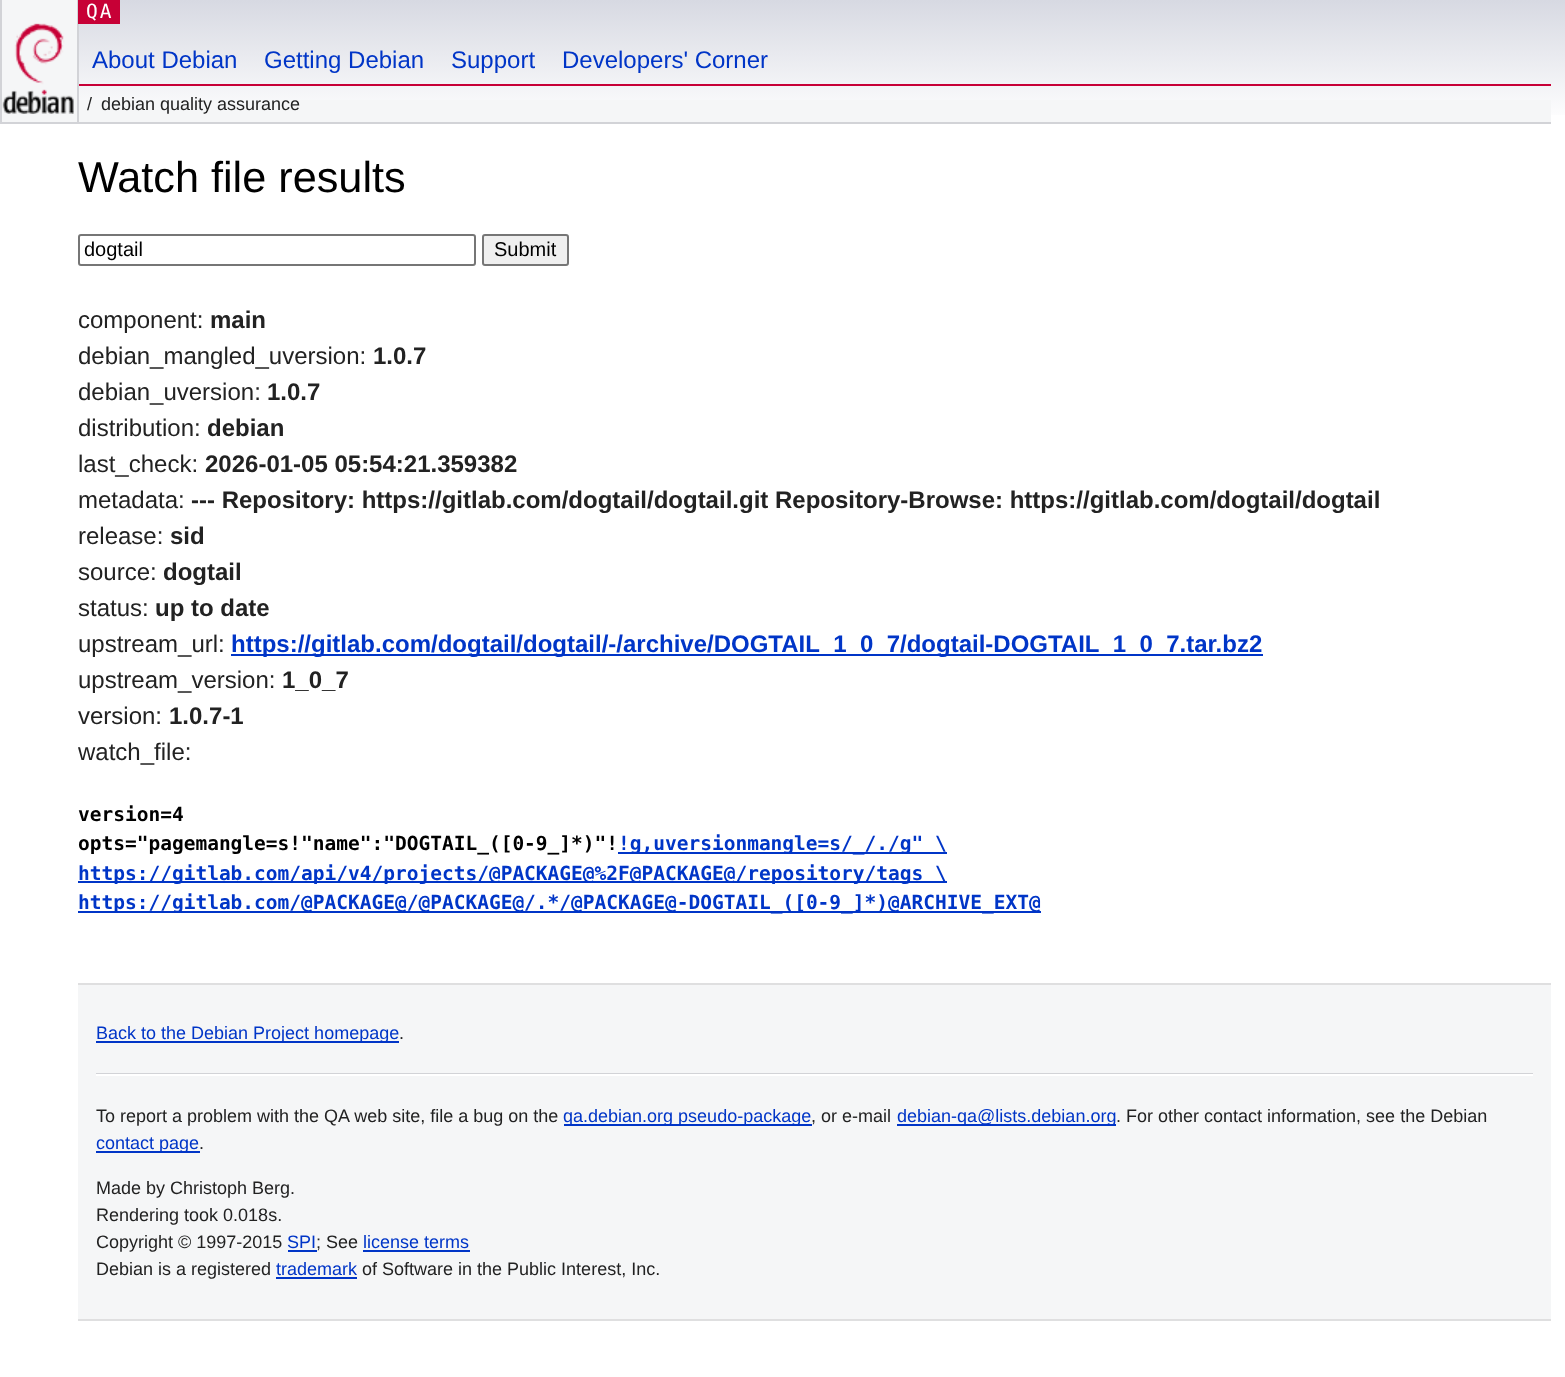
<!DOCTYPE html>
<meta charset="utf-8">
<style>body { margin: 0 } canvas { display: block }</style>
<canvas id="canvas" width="1565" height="1377"></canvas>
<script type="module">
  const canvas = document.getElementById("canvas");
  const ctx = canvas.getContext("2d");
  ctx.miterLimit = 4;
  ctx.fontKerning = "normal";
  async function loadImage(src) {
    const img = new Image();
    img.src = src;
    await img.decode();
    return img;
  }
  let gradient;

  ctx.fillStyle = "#ffffff";
  ctx.fillRect(0, 0, 1565, 1377);
  gradient = ctx.createLinearGradient(783, 0, 783, 123);
  gradient.addColorStop(0, "#d7d9e2");
  gradient.addColorStop(1, "#ffffff");
  ctx.fillStyle = gradient;
  ctx.fillRect(79, 0, 1486, 115);
  ctx.fillStyle = "#f5f6f7";
  ctx.fillRect(2, 0, 75, 122);
  ctx.fillStyle = "#c70036";
  ctx.fillRect(78, 84, 1473, 2);
  ctx.fillStyle = "#d2d3d7";
  ctx.fillRect(78, 122, 1473, 2);
  ctx.fillRect(77, 0, 2, 123);
  ctx.fillRect(0, 122, 78, 2);
  ctx.fillRect(0, 0, 2, 123);
  ctx.drawImage(await loadImage("img1.png"), 2, 23, 72, 91);
  ctx.fillStyle = "#c70036";
  ctx.fillRect(78, 0, 42, 24);
  ctx.letterSpacing = "2px";
  ctx.font = "19.5px DejaVu Sans Mono";
  ctx.fillStyle = "#ffffff";
  ctx.fillText("QA", 86, 18);
  ctx.letterSpacing = "0px";
  ctx.font = "24px Liberation Sans";
  ctx.fillStyle = "#0035c7";
  ctx.fillText("About Debian", 92, 68);
  ctx.fillText("Getting Debian", 264, 68);
  ctx.fillText("Support", 451, 68);
  ctx.fillText("Developers' Corner", 562, 68);
  ctx.fillStyle = "#f5f6f7";
  ctx.fillRect(79, 100, 1472, 22);
  ctx.font = "18px Liberation Sans";
  ctx.fillStyle = "#222222";
  ctx.fillText("/", 87, 110);
  ctx.fillText("debian quality assurance", 101, 110);
  ctx.font = "43.25px Liberation Sans";
  ctx.fillStyle = "#000000";
  ctx.fillText("Watch file results", 78, 192);
  ctx.beginPath();
  ctx.roundRect(79, 235, 396, 30, 2);
  ctx.strokeStyle = "#767676";
  ctx.lineWidth = 2;
  ctx.stroke();
  ctx.font = "20px Liberation Sans";
  ctx.fillText("dogtail", 84, 256);
  ctx.fillStyle = "#efefef";
  ctx.beginPath();
  ctx.roundRect(483, 235, 85, 30, 2);
  ctx.fill();
  ctx.stroke();
  ctx.fillStyle = "#000000";
  ctx.fillText("Submit", 494, 256);
  ctx.font = "24px Liberation Sans";
  ctx.fillStyle = "#222222";
  ctx.fillText("component:", 78, 328);
  ctx.font = "bold 24px Liberation Sans";
  ctx.fillText("main", 210, 328);
  ctx.font = "24px Liberation Sans";
  ctx.fillText("debian_mangled_uversion:", 78, 364);
  ctx.font = "bold 24px Liberation Sans";
  ctx.fillText("1.0.7", 373, 364);
  ctx.font = "24px Liberation Sans";
  ctx.fillText("debian_uversion:", 78, 400);
  ctx.font = "bold 24px Liberation Sans";
  ctx.fillText("1.0.7", 267, 400);
  ctx.font = "24px Liberation Sans";
  ctx.fillText("distribution:", 78, 436);
  ctx.font = "bold 24px Liberation Sans";
  ctx.fillText("debian", 207, 436);
  ctx.font = "24px Liberation Sans";
  ctx.fillText("last_check:", 78, 472);
  ctx.font = "bold 24px Liberation Sans";
  ctx.fillText("2026-01-05 05:54:21.359382", 205, 472);
  ctx.font = "24px Liberation Sans";
  ctx.fillText("metadata:", 78, 508);
  ctx.font = "bold 24px Liberation Sans";
  ctx.fillText("--- Repository: https://gitlab.com/dogtail/dogtail.git Repository-Browse: https://gitlab.com/dogtail/dogtail", 191, 508);
  ctx.font = "24px Liberation Sans";
  ctx.fillText("release:", 78, 544);
  ctx.font = "bold 24px Liberation Sans";
  ctx.fillText("sid", 170, 544);
  ctx.font = "24px Liberation Sans";
  ctx.fillText("source:", 78, 580);
  ctx.font = "bold 24px Liberation Sans";
  ctx.fillText("dogtail", 163, 580);
  ctx.font = "24px Liberation Sans";
  ctx.fillText("status:", 78, 616);
  ctx.font = "bold 24px Liberation Sans";
  ctx.fillText("up to date", 155, 616);
  ctx.font = "24px Liberation Sans";
  ctx.fillText("upstream_url:", 78, 652);
  ctx.fillStyle = "#0035c7";
  ctx.fillRect(231, 654, 1032, 2);
  ctx.font = "bold 24px Liberation Sans";
  ctx.fillText("https://gitlab.com/dogtail/dogtail/-/archive/DOGTAIL_1_0_7/dogtail-DOGTAIL_1_0_7.tar.bz2", 231, 652);
  ctx.font = "24px Liberation Sans";
  ctx.fillStyle = "#222222";
  ctx.fillText("upstream_version:", 78, 688);
  ctx.font = "bold 24px Liberation Sans";
  ctx.fillText("1_0_7", 282, 688);
  ctx.font = "24px Liberation Sans";
  ctx.fillText("version:", 78, 724);
  ctx.font = "bold 24px Liberation Sans";
  ctx.fillText("1.0.7-1", 169, 724);
  ctx.font = "24px Liberation Sans";
  ctx.fillText("watch_file:", 78, 760);
  ctx.font = "bold 19.5px DejaVu Sans Mono";
  ctx.fillStyle = "#000000";
  ctx.fillText("version=4", 78, 821);
  ctx.fillText("opts=\"pagemangle=s!\"name\":\"DOGTAIL_([0-9_]*)\"!", 78, 850);
  ctx.fillStyle = "#0035c7";
  ctx.fillRect(618, 852, 329, 2);
  ctx.fillText("!g,uversionmangle=s/_/./g\" \\", 618, 850);
  ctx.fillRect(78, 881, 869, 2);
  ctx.fillText("https://gitlab.com/api/v4/projects/@PACKAGE@%2F@PACKAGE@/repository/tags \\", 78, 880);
  ctx.fillRect(78, 911, 963, 2);
  ctx.fillText("https://gitlab.com/@PACKAGE@/@PACKAGE@/.*/@PACKAGE@-DOGTAIL_([0-9_]*)@ARCHIVE_EXT@", 78, 909);
  ctx.fillStyle = "#f5f6f7";
  ctx.fillRect(78, 985, 1473, 334);
  ctx.fillStyle = "#dfdfe0";
  ctx.fillRect(78, 983, 1473, 2);
  ctx.fillRect(78, 1319, 1473, 2);
  ctx.fillStyle = "#0035c7";
  ctx.fillRect(96, 1041, 303, 2);
  ctx.font = "18px Liberation Sans";
  ctx.fillText("Back to the Debian Project homepage", 96, 1039);
  ctx.fillStyle = "#222222";
  ctx.fillText(".", 399, 1039);
  ctx.fillStyle = "#d2d3d7";
  ctx.fillRect(96, 1073, 1437, 1);
  ctx.fillStyle = "#ffffff";
  ctx.fillRect(96, 1074, 1437, 2);
  ctx.fillStyle = "#222222";
  ctx.fillText("To report a problem with the QA web site, file a bug on the", 96, 1122);
  ctx.fillStyle = "#0035c7";
  ctx.fillRect(564, 1124, 248, 2);
  ctx.fillText("qa.debian.org pseudo-package", 563, 1122);
  ctx.fillStyle = "#222222";
  ctx.fillText(", or e-mail", 811, 1122);
  ctx.fillStyle = "#0035c7";
  ctx.fillRect(897, 1124, 219, 2);
  ctx.fillText("debian-qa@lists.debian.org", 897, 1122);
  ctx.fillStyle = "#222222";
  ctx.fillText(". For other contact information, see the Debian", 1116, 1122);
  ctx.fillStyle = "#0035c7";
  ctx.fillRect(96, 1151, 104, 2);
  ctx.fillText("contact page", 96, 1149);
  ctx.fillStyle = "#222222";
  ctx.fillText(".", 199, 1149);
  ctx.fillText("Made by Christoph Berg.", 96, 1194);
  ctx.fillText("Rendering took 0.018s.", 96, 1221);
  ctx.fillText("Copyright © 1997-2015", 96, 1248);
  ctx.fillStyle = "#0035c7";
  ctx.fillText("SPI", 287, 1248);
  ctx.fillRect(288, 1250, 29, 2);
  ctx.fillStyle = "#222222";
  ctx.fillText("; See", 316, 1248);
  ctx.fillStyle = "#0035c7";
  ctx.fillText("license terms", 363, 1248);
  ctx.fillRect(363, 1250, 107, 2);
  ctx.fillStyle = "#222222";
  ctx.fillText("Debian is a registered", 96, 1275);
  ctx.fillStyle = "#0035c7";
  ctx.fillText("trademark", 276, 1275);
  ctx.fillRect(276, 1277, 81, 2);
  ctx.fillStyle = "#222222";
  ctx.fillText("of Software in the Public Interest, Inc.", 362, 1275);
</script>
